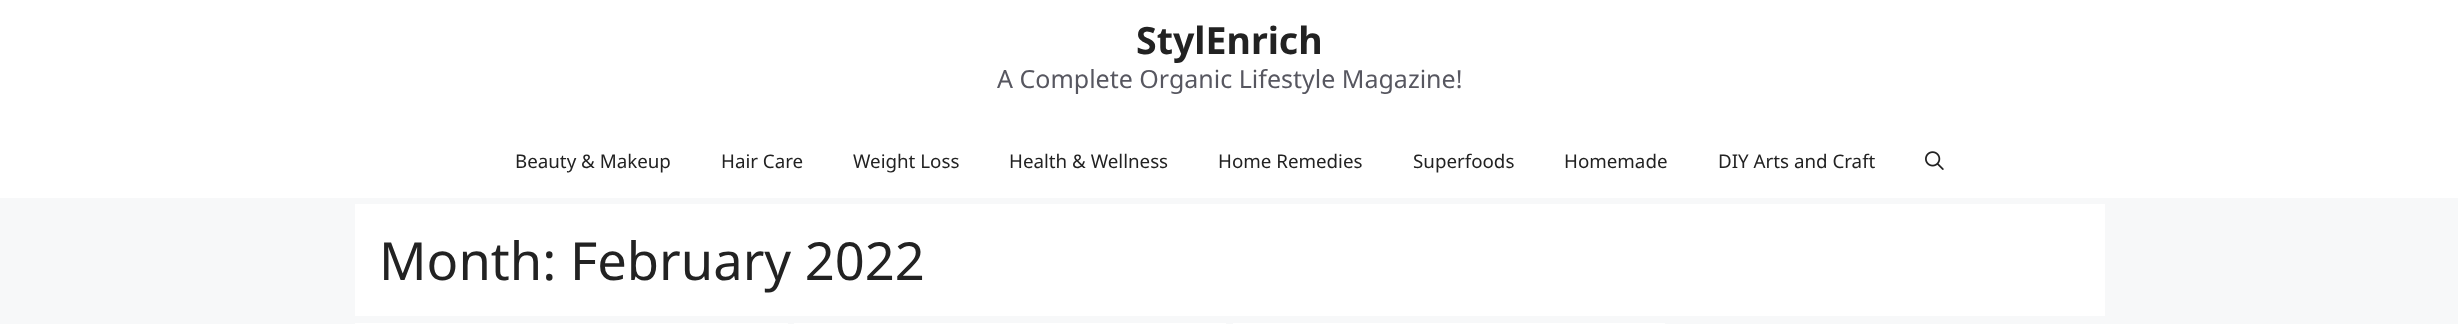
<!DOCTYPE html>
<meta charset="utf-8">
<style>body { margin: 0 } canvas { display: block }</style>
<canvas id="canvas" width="2458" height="324"></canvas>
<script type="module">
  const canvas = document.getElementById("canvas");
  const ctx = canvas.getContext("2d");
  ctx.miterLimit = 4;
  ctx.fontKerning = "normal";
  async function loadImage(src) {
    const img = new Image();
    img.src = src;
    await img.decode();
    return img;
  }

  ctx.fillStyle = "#f7f8f9";
  ctx.fillRect(0, 0, 2458, 324);
  ctx.fillStyle = "#ffffff";
  ctx.fillRect(0, 0, 2458, 198);
  ctx.font = "bold 37.5px Noto Sans";
  ctx.fillStyle = "#222222";
  ctx.fillText("StylEnrich", 1136, 54);
  ctx.font = "25px Noto Sans";
  ctx.fillStyle = "#575760";
  ctx.fillText("A Complete Organic Lifestyle Magazine!", 997, 88);
  ctx.font = "18.75px Noto Sans";
  ctx.fillStyle = "#222222";
  ctx.fillText("Beauty & Makeup", 515, 168);
  ctx.fillText("Hair Care", 721, 168);
  ctx.fillText("Weight Loss", 853, 168);
  ctx.fillText("Health & Wellness", 1009, 168);
  ctx.fillText("Home Remedies", 1218, 168);
  ctx.fillText("Superfoods", 1413, 168);
  ctx.fillText("Homemade", 1564, 168);
  ctx.fillText("DIY Arts and Craft", 1718, 168);
  ctx.drawImage(await loadImage("img1.png"), 1925, 151, 19, 19);
  ctx.fillStyle = "#ffffff";
  ctx.fillRect(355, 204, 1750, 112);
  ctx.font = "52.5px Noto Sans";
  ctx.fillStyle = "#222222";
  ctx.fillText("Month: February 2022", 379, 280);
  ctx.fillStyle = "#ffffff";
  ctx.fillRect(355, 323, 433, 1);
  ctx.fillRect(794, 323, 432, 1);
  ctx.fillRect(1233, 323, 432, 1);
</script>
